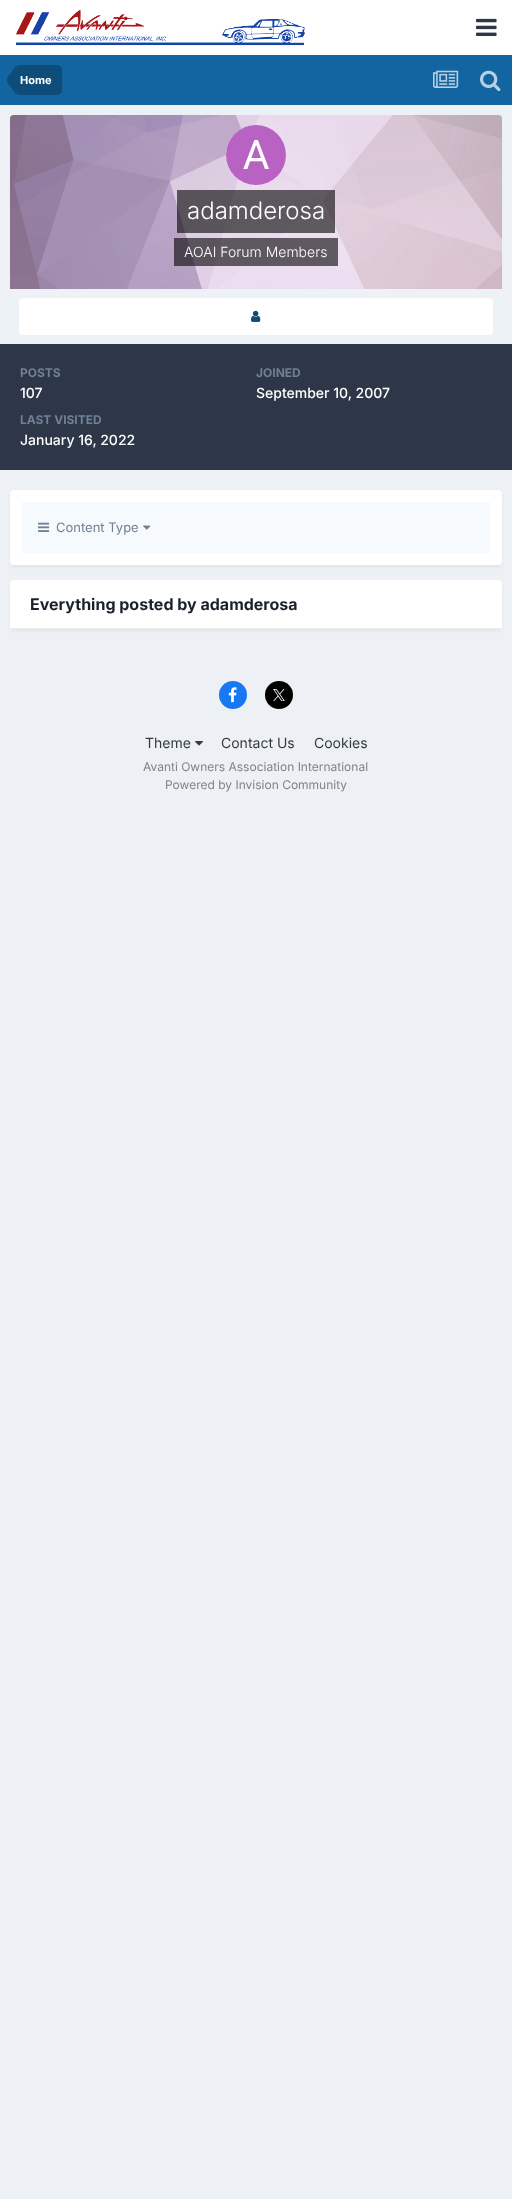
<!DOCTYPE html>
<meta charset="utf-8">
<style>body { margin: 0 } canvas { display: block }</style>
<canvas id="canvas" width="512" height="2199"></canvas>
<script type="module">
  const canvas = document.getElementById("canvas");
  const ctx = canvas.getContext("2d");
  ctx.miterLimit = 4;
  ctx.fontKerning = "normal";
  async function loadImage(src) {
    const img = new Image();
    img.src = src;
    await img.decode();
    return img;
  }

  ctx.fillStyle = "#edf0f4";
  ctx.fillRect(0, 0, 512, 2199);
  ctx.fillStyle = "#ffffff";
  ctx.fillRect(0, 0, 512, 55);
  ctx.drawImage(await loadImage("img1.png"), 16, 9, 289, 37);
  ctx.drawImage(await loadImage("img2.png"), 476, 18, 21, 18);
  ctx.fillStyle = "#1265a1";
  ctx.fillRect(0, 55, 512, 50);
  ctx.fillStyle = "#0e4c79";
  ctx.beginPath();
  ctx.roundRect(20, 65, 42, 30, [0, 5, 5, 0]);
  ctx.fill();
  ctx.beginPath();
  ctx.moveTo(20, 80);
  ctx.lineTo(20, 95);
  ctx.bezierCurveTo(15.5, 95, 13.5, 90.5, 11, 87);
  ctx.bezierCurveTo(9.5, 85, 7, 83, 7, 80);
  ctx.closePath();
  ctx.moveTo(20, 80);
  ctx.lineTo(7, 80);
  ctx.bezierCurveTo(7, 77, 9.5, 75, 11, 73);
  ctx.bezierCurveTo(13.5, 69.5, 15.5, 65, 20, 65);
  ctx.closePath();
  ctx.fill();
  ctx.font = "bold 11px Inter";
  ctx.fillStyle = "#ffffff";
  ctx.fillText("Home", 20, 84);
  ctx.drawImage(await loadImage("img3.png"), 433, 70, 26, 18);
  ctx.drawImage(await loadImage("img4.png"), 480, 70, 21, 22);
  ctx.fillStyle = "#f099ff";
  ctx.beginPath();
  ctx.roundRect(10, 115, 492, 174, [4, 4, 0, 0]);
  ctx.fill();
  ctx.drawImage(await loadImage("img5.png"), 10, 115, 492, 174);
  ctx.fillStyle = "#ffffff";
  ctx.beginPath();
  ctx.arc(256, 155, 30, 0, Math.PI * 2);
  ctx.fill();
  ctx.drawImage(await loadImage("img6.png"), 226, 125, 60, 60);
  ctx.fillStyle = "rgba(0, 0, 0, 0.6)";
  ctx.fillRect(177, 190, 158, 43);
  ctx.font = "300 24px Inter";
  ctx.fillStyle = "#ffffff";
  ctx.fillText("adamderosa", 187, 219);
  ctx.fillStyle = "rgba(0, 0, 0, 0.6)";
  ctx.fillRect(174, 238, 164, 28);
  ctx.font = "300 14px Inter";
  ctx.fillStyle = "#ffffff";
  ctx.fillText("AOAI Forum Members", 184, 257);
  ctx.fillStyle = "#edf2f7";
  ctx.fillRect(10, 289, 492, 55);
  ctx.fillStyle = "#ffffff";
  ctx.beginPath();
  ctx.roundRect(18, 297, 476, 39, 4);
  ctx.fill();
  ctx.beginPath();
  ctx.roundRect(18.5, 297.5, 475, 38, 3.5);
  ctx.strokeStyle = "rgba(14, 76, 121, 0.07)";
  ctx.stroke();
  ctx.drawImage(await loadImage("img7.png"), 251, 310, 10, 12);
  ctx.fillStyle = "#2d3748";
  ctx.fillRect(0, 344, 512, 126);
  ctx.font = "bold 12px Inter";
  ctx.fillStyle = "#718096";
  ctx.fillText("POSTS", 20, 377);
  ctx.font = "500 14px Inter";
  ctx.fillStyle = "#ffffff";
  ctx.fillText("107", 20, 398);
  ctx.font = "bold 12px Inter";
  ctx.fillStyle = "#718096";
  ctx.fillText("JOINED", 256, 377);
  ctx.font = "500 14px Inter";
  ctx.fillStyle = "#ffffff";
  ctx.fillText("September 10, 2007", 256, 398);
  ctx.font = "bold 12px Inter";
  ctx.fillStyle = "#718096";
  ctx.fillText("LAST VISITED", 20, 424);
  ctx.font = "500 14px Inter";
  ctx.fillStyle = "#ffffff";
  ctx.fillText("January 16, 2022", 20, 445);
  ctx.fillStyle = "rgba(45, 55, 72, 0.1)";
  ctx.filter = "blur(2px)";
  ctx.beginPath();
  ctx.roundRect(11, 493, 490, 73, 3);
  ctx.fill();
  ctx.filter = "none";
  ctx.fillStyle = "#ffffff";
  ctx.beginPath();
  ctx.roundRect(10, 490, 492, 75, 4);
  ctx.fill();
  ctx.fillStyle = "#f7fafc";
  ctx.fillRect(22, 502, 468, 51);
  ctx.drawImage(await loadImage("img8.png"), 38, 522, 12, 10);
  ctx.font = "13px Inter";
  ctx.fillStyle = "#718096";
  ctx.fillText("Content Type", 56, 532);
  ctx.drawImage(await loadImage("img9.png"), 143, 525, 8, 5);
  ctx.fillStyle = "rgba(45, 55, 72, 0.1)";
  ctx.filter = "blur(2px)";
  ctx.beginPath();
  ctx.roundRect(11, 583, 490, 47, 3);
  ctx.fill();
  ctx.filter = "none";
  ctx.fillStyle = "#ffffff";
  ctx.beginPath();
  ctx.roundRect(10, 580, 492, 49, [4, 4, 0, 0]);
  ctx.fill();
  ctx.fillStyle = "#eaecef";
  ctx.fillRect(10, 628, 492, 1);
  ctx.font = "bold 16px Inter";
  ctx.fillStyle = "#1a202c";
  ctx.fillText("Everything posted by adamderosa", 30, 610);
  ctx.fillStyle = "#1778f2";
  ctx.beginPath();
  ctx.arc(233, 695, 14, 0, Math.PI * 2);
  ctx.fill();
  ctx.drawImage(await loadImage("img10.png"), 228, 687, 9, 16);
  ctx.fillStyle = "#000000";
  ctx.beginPath();
  ctx.arc(279, 695, 14, 0, Math.PI * 2);
  ctx.fill();
  ctx.drawImage(await loadImage("img11.png"), 273, 689, 12, 12);
  ctx.font = "14px Inter";
  ctx.fillStyle = "#353c41";
  ctx.fillText("Theme", 145, 748);
  ctx.drawImage(await loadImage("img12.png"), 195, 741, 8, 5);
  ctx.fillText("Contact Us", 221, 748);
  ctx.fillText("Cookies", 314, 748);
  ctx.font = "12px Inter";
  ctx.fillStyle = "#7f8489";
  ctx.fillText("Avanti Owners Association International", 143, 771);
  ctx.fillText("Powered by Invision Community", 165, 789);
</script>
